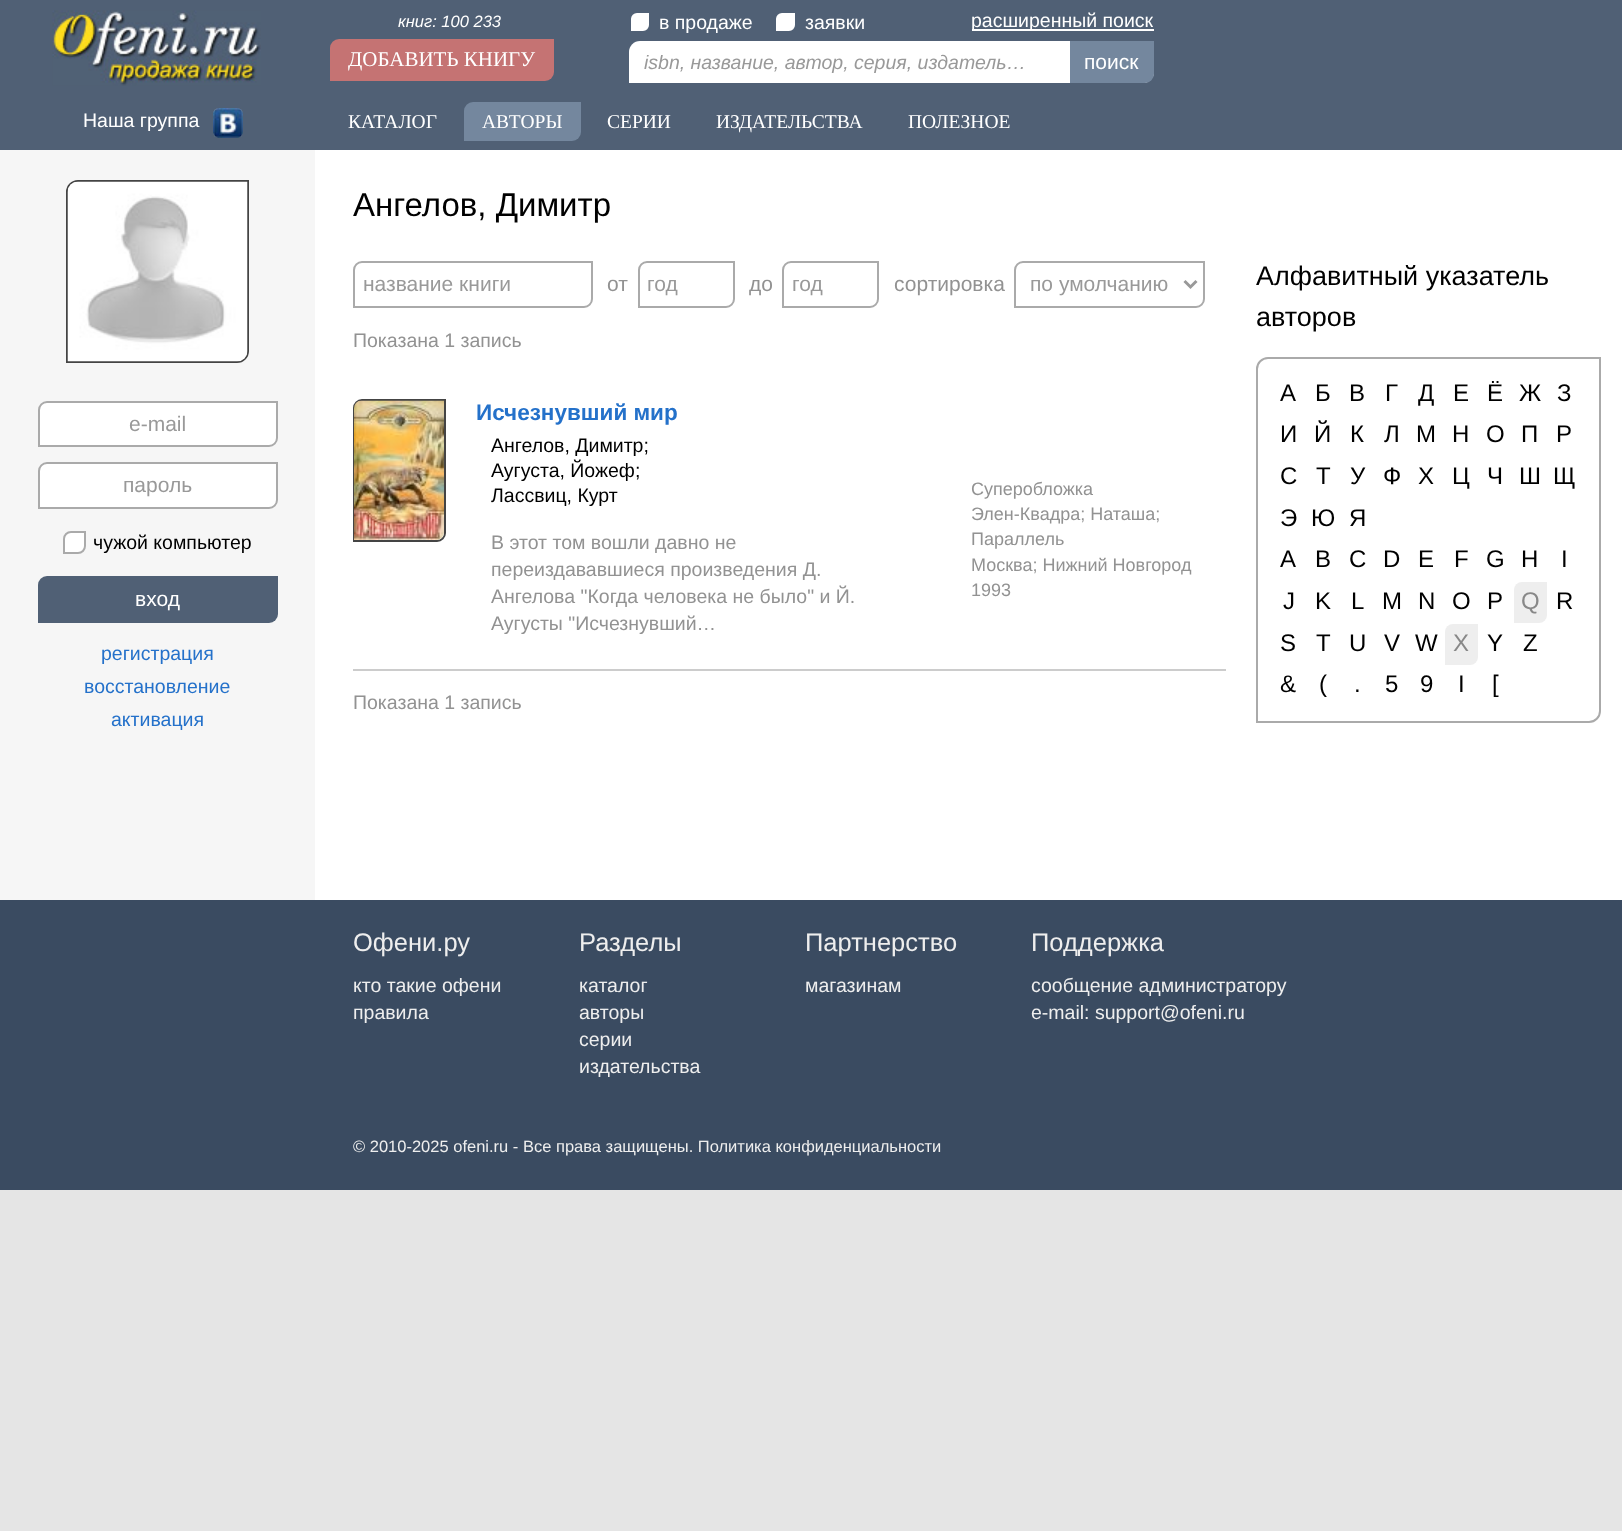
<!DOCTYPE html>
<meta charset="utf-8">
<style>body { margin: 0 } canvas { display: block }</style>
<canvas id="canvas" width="1622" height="1531"></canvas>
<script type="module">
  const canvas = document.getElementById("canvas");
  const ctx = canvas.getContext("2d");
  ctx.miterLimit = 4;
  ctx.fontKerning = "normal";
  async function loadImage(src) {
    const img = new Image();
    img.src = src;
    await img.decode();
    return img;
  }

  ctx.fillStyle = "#e5e5e5";
  ctx.fillRect(0, 0, 1622, 1531);
  ctx.fillStyle = "#506075";
  ctx.fillRect(0, 0, 1622, 150);
  ctx.drawImage(await loadImage("img1.png"), 52, 10, 209, 76);
  ctx.font = "italic 16.5px Liberation Sans";
  ctx.fillStyle = "#ffffff";
  ctx.fillText("книг: 100 233", 398, 27);
  ctx.fillStyle = "#c57373";
  ctx.beginPath();
  ctx.roundRect(330, 39, 224, 42, [9, 0, 9, 0]);
  ctx.fill();
  ctx.font = "21px Liberation Serif";
  ctx.fillStyle = "#ffffff";
  ctx.fillText("ДОБАВИТЬ КНИГУ", 348, 66);
  ctx.beginPath();
  ctx.roundRect(630, 12, 20, 20, [7, 0, 7, 0]);
  ctx.fill();
  ctx.strokeStyle = "#506075";
  ctx.lineWidth = 2;
  ctx.stroke();
  ctx.font = "19.5px Liberation Sans";
  ctx.fillText("в продаже", 659, 29);
  ctx.beginPath();
  ctx.roundRect(775, 12, 21, 20, [7, 0, 7, 0]);
  ctx.fill();
  ctx.stroke();
  ctx.fillText("заявки", 805, 29);
  ctx.fillRect(972, 29, 182, 2);
  ctx.fillText("расширенный поиск", 971, 27);
  ctx.beginPath();
  ctx.roundRect(629, 41, 525, 42, [11, 0, 11, 0]);
  ctx.fill();
  ctx.font = "italic 19.5px Liberation Sans";
  ctx.fillStyle = "#999999";
  ctx.fillText("isbn, название, автор, серия, издатель…", 644, 69);
  ctx.fillStyle = "#74879e";
  ctx.beginPath();
  ctx.roundRect(1070, 41, 84, 42, [0, 0, 9, 0]);
  ctx.fill();
  ctx.font = "21px Liberation Sans";
  ctx.fillStyle = "#ffffff";
  ctx.fillText("поиск", 1084, 69);
  ctx.font = "19.5px Liberation Sans";
  ctx.fillText("Наша группа", 83, 127);
  ctx.drawImage(await loadImage("img2.png"), 213, 108, 30, 30);
  ctx.font = "19.5px Liberation Serif";
  ctx.fillText("КАТАЛОГ", 348, 128);
  ctx.fillStyle = "#74879e";
  ctx.beginPath();
  ctx.roundRect(464, 102, 117, 39, [9, 0, 9, 0]);
  ctx.fill();
  ctx.fillStyle = "#ffffff";
  ctx.fillText("АВТОРЫ", 482, 128);
  ctx.fillText("СЕРИИ", 607, 128);
  ctx.fillText("ИЗДАТЕЛЬСТВА", 716, 128);
  ctx.fillText("ПОЛЕЗНОЕ", 908, 128);
  ctx.fillStyle = "#f6f6f6";
  ctx.fillRect(0, 150, 315, 750);
  ctx.beginPath();
  ctx.roundRect(67, 181, 181, 181, [11, 0, 11, 0]);
  ctx.strokeStyle = "#444444";
  ctx.stroke();
  ctx.drawImage(await loadImage("img3.png"), 67, 181, 181, 181);
  ctx.fillStyle = "#ffffff";
  ctx.beginPath();
  ctx.roundRect(39, 402, 238, 44, [8, 0, 8, 0]);
  ctx.fill();
  ctx.strokeStyle = "#aaaaaa";
  ctx.stroke();
  ctx.font = "21px Liberation Sans";
  ctx.fillStyle = "#999999";
  ctx.fillText("e-mail", 129, 431);
  ctx.fillStyle = "#ffffff";
  ctx.beginPath();
  ctx.roundRect(39, 463, 238, 45, [8, 0, 8, 0]);
  ctx.fill();
  ctx.stroke();
  ctx.fillStyle = "#999999";
  ctx.fillText("пароль", 123, 492);
  ctx.fillStyle = "#ffffff";
  ctx.beginPath();
  ctx.roundRect(64, 532, 21, 21, [7, 0, 7, 0]);
  ctx.fill();
  ctx.stroke();
  ctx.font = "19.5px Liberation Sans";
  ctx.fillStyle = "#000000";
  ctx.fillText("чужой компьютер", 93, 549);
  ctx.fillStyle = "#506075";
  ctx.beginPath();
  ctx.roundRect(38, 576, 240, 47, [9, 0, 9, 0]);
  ctx.fill();
  ctx.font = "21px Liberation Sans";
  ctx.fillStyle = "#ffffff";
  ctx.fillText("вход", 135, 606);
  ctx.font = "19.5px Liberation Sans";
  ctx.fillStyle = "#2471ca";
  ctx.fillText("регистрация", 101, 660);
  ctx.fillText("восстановление", 84, 693);
  ctx.fillText("активация", 111, 726);
  ctx.fillStyle = "#ffffff";
  ctx.fillRect(315, 150, 1307, 750);
  ctx.font = "33px Liberation Sans";
  ctx.fillStyle = "#000000";
  ctx.fillText("Ангелов, Димитр", 353, 216);
  ctx.beginPath();
  ctx.roundRect(354, 262, 238, 45, [8, 0, 8, 0]);
  ctx.stroke();
  ctx.font = "21px Liberation Sans";
  ctx.fillStyle = "#999999";
  ctx.fillText("название книги", 363, 291);
  ctx.fillStyle = "#929292";
  ctx.fillText("от", 607, 291);
  ctx.beginPath();
  ctx.roundRect(639, 262, 95, 45, [8, 0, 8, 0]);
  ctx.stroke();
  ctx.fillStyle = "#999999";
  ctx.fillText("год", 647, 291);
  ctx.fillStyle = "#929292";
  ctx.fillText("до", 749, 291);
  ctx.beginPath();
  ctx.roundRect(783, 262, 95, 45, [8, 0, 8, 0]);
  ctx.stroke();
  ctx.fillStyle = "#999999";
  ctx.fillText("год", 792, 291);
  ctx.fillStyle = "#929292";
  ctx.fillText("сортировка", 894, 291);
  ctx.beginPath();
  ctx.roundRect(1015, 262, 189, 45, [8, 0, 8, 0]);
  ctx.stroke();
  ctx.beginPath();
  ctx.moveTo(1184.5, 281);
  ctx.lineTo(1190.5, 287);
  ctx.lineTo(1196.5, 281);
  ctx.strokeStyle = "#999999";
  ctx.lineWidth = 3;
  ctx.stroke();
  ctx.fillStyle = "#999999";
  ctx.fillText("по умолчанию", 1030, 291);
  ctx.font = "19.5px Liberation Sans";
  ctx.fillStyle = "#929292";
  ctx.fillText("Показана 1 запись", 353, 347);
  ctx.fillStyle = "#cccccc";
  ctx.fillRect(353, 669, 873, 2);
  ctx.beginPath();
  ctx.roundRect(354, 400, 91, 141, [8, 0, 8, 0]);
  ctx.strokeStyle = "#444444";
  ctx.lineWidth = 2;
  ctx.stroke();
  ctx.drawImage(await loadImage("img4.png"), 354, 400, 90, 140);
  ctx.font = "bold 22.5px Liberation Sans";
  ctx.fillStyle = "#2471ca";
  ctx.fillText("Исчезнувший мир", 476, 420);
  ctx.font = "19.5px Liberation Sans";
  ctx.fillStyle = "#000000";
  ctx.fillText("Ангелов, Димитр;", 491, 452);
  ctx.fillText("Аугуста, Йожеф;", 491, 477);
  ctx.fillText("Лассвиц, Курт", 491, 502);
  ctx.fillStyle = "#929292";
  ctx.fillText("В этот том вошли давно не", 491, 549);
  ctx.fillText("переиздававшиеся произведения Д.", 491, 576);
  ctx.fillText("Ангелова \"Когда человека не было\" и Й.", 491, 603);
  ctx.fillText("Аугусты \"Исчезнувший…", 491, 630);
  ctx.font = "18px Liberation Sans";
  ctx.fillText("Суперобложка", 971, 495);
  ctx.fillText("Элен-Квадра; Наташа;", 971, 520);
  ctx.fillText("Параллель", 971, 545);
  ctx.fillText("Москва; Нижний Новгород", 971, 571);
  ctx.fillText("1993", 971, 596);
  ctx.font = "19.5px Liberation Sans";
  ctx.fillText("Показана 1 запись", 353, 709);
  ctx.font = "27px Liberation Sans";
  ctx.fillStyle = "#000000";
  ctx.fillText("Алфавитный указатель", 1256, 285);
  ctx.fillText("авторов", 1256, 326);
  ctx.beginPath();
  ctx.roundRect(1257, 358, 343, 364, [11, 0, 11, 0]);
  ctx.strokeStyle = "#aaaaaa";
  ctx.stroke();
  ctx.font = "24px Liberation Sans";
  ctx.fillText("А", 1280, 401);
  ctx.fillText("Б", 1315, 401);
  ctx.fillText("В", 1349, 401);
  ctx.fillText("Г", 1385, 401);
  ctx.fillText("Д", 1418, 401);
  ctx.fillText("Е", 1453, 401);
  ctx.fillText("Ё", 1487, 401);
  ctx.fillText("Ж", 1519, 401);
  ctx.fillText("З", 1557, 401);
  ctx.fillText("И", 1280, 442);
  ctx.fillText("Й", 1314, 442);
  ctx.fillText("К", 1350, 442);
  ctx.fillText("Л", 1384, 442);
  ctx.fillText("М", 1416, 442);
  ctx.fillText("Н", 1452, 442);
  ctx.fillText("О", 1486, 442);
  ctx.fillText("П", 1521, 442);
  ctx.fillText("Р", 1556, 442);
  ctx.fillText("С", 1280, 484);
  ctx.fillText("Т", 1316, 484);
  ctx.fillText("У", 1350, 484);
  ctx.fillText("Ф", 1383, 484);
  ctx.fillText("Х", 1418, 484);
  ctx.fillText("Ц", 1452, 484);
  ctx.fillText("Ч", 1487, 484);
  ctx.fillText("Ш", 1519, 484);
  ctx.fillText("Щ", 1553, 484);
  ctx.fillText("Э", 1280, 526);
  ctx.fillText("Ю", 1311, 526);
  ctx.fillText("Я", 1349, 526);
  ctx.fillText("A", 1280, 567);
  ctx.fillText("B", 1315, 567);
  ctx.fillText("C", 1349, 567);
  ctx.fillText("D", 1383, 567);
  ctx.fillText("E", 1418, 567);
  ctx.fillText("F", 1454, 567);
  ctx.fillText("G", 1486, 567);
  ctx.fillText("H", 1521, 567);
  ctx.fillText("I", 1561, 567);
  ctx.fillText("J", 1283, 609);
  ctx.fillText("K", 1315, 609);
  ctx.fillText("L", 1351, 609);
  ctx.fillText("M", 1382, 609);
  ctx.fillText("N", 1418, 609);
  ctx.fillText("O", 1452, 609);
  ctx.fillText("P", 1487, 609);
  ctx.fillStyle = "#eeeeee";
  ctx.beginPath();
  ctx.roundRect(1514, 582, 33, 41, [8, 0, 8, 0]);
  ctx.fill();
  ctx.fillStyle = "#888888";
  ctx.fillText("Q", 1521, 609);
  ctx.fillStyle = "#000000";
  ctx.fillText("R", 1556, 609);
  ctx.fillText("S", 1280, 651);
  ctx.fillText("T", 1316, 651);
  ctx.fillText("U", 1349, 651);
  ctx.fillText("V", 1384, 651);
  ctx.fillText("W", 1415, 651);
  ctx.fillStyle = "#eeeeee";
  ctx.beginPath();
  ctx.roundRect(1445, 624, 33, 41, [8, 0, 8, 0]);
  ctx.fill();
  ctx.fillStyle = "#888888";
  ctx.fillText("X", 1453, 651);
  ctx.fillStyle = "#000000";
  ctx.fillText("Y", 1487, 651);
  ctx.fillText("Z", 1523, 651);
  ctx.fillText("&", 1280, 692);
  ctx.fillText("(", 1319, 692);
  ctx.fillText(".", 1354, 692);
  ctx.fillText("5", 1385, 692);
  ctx.fillText("9", 1420, 692);
  ctx.fillText("І", 1458, 692);
  ctx.fillText("[", 1492, 692);
  ctx.fillStyle = "#3a4b61";
  ctx.fillRect(0, 900, 1622, 290);
  ctx.font = "25.5px Liberation Sans";
  ctx.fillStyle = "#eeeeee";
  ctx.fillText("Офени.ру", 353, 951);
  ctx.font = "19.5px Liberation Sans";
  ctx.fillText("кто такие офени", 353, 992);
  ctx.fillText("правила", 353, 1019);
  ctx.font = "25.5px Liberation Sans";
  ctx.fillText("Разделы", 579, 951);
  ctx.font = "19.5px Liberation Sans";
  ctx.fillText("каталог", 579, 992);
  ctx.fillText("авторы", 579, 1019);
  ctx.fillText("серии", 579, 1046);
  ctx.fillText("издательства", 579, 1073);
  ctx.font = "25.5px Liberation Sans";
  ctx.fillText("Партнерство", 805, 951);
  ctx.font = "19.5px Liberation Sans";
  ctx.fillText("магазинам", 805, 992);
  ctx.font = "25.5px Liberation Sans";
  ctx.fillText("Поддержка", 1031, 951);
  ctx.font = "19.5px Liberation Sans";
  ctx.fillText("сообщение администратору", 1031, 992);
  ctx.fillText("e-mail: support@ofeni.ru", 1031, 1019);
  ctx.font = "16.5px Liberation Sans";
  ctx.fillText("© 2010-2025 ofeni.ru - Все права защищены. Политика конфиденциальности", 353, 1152);
</script>
